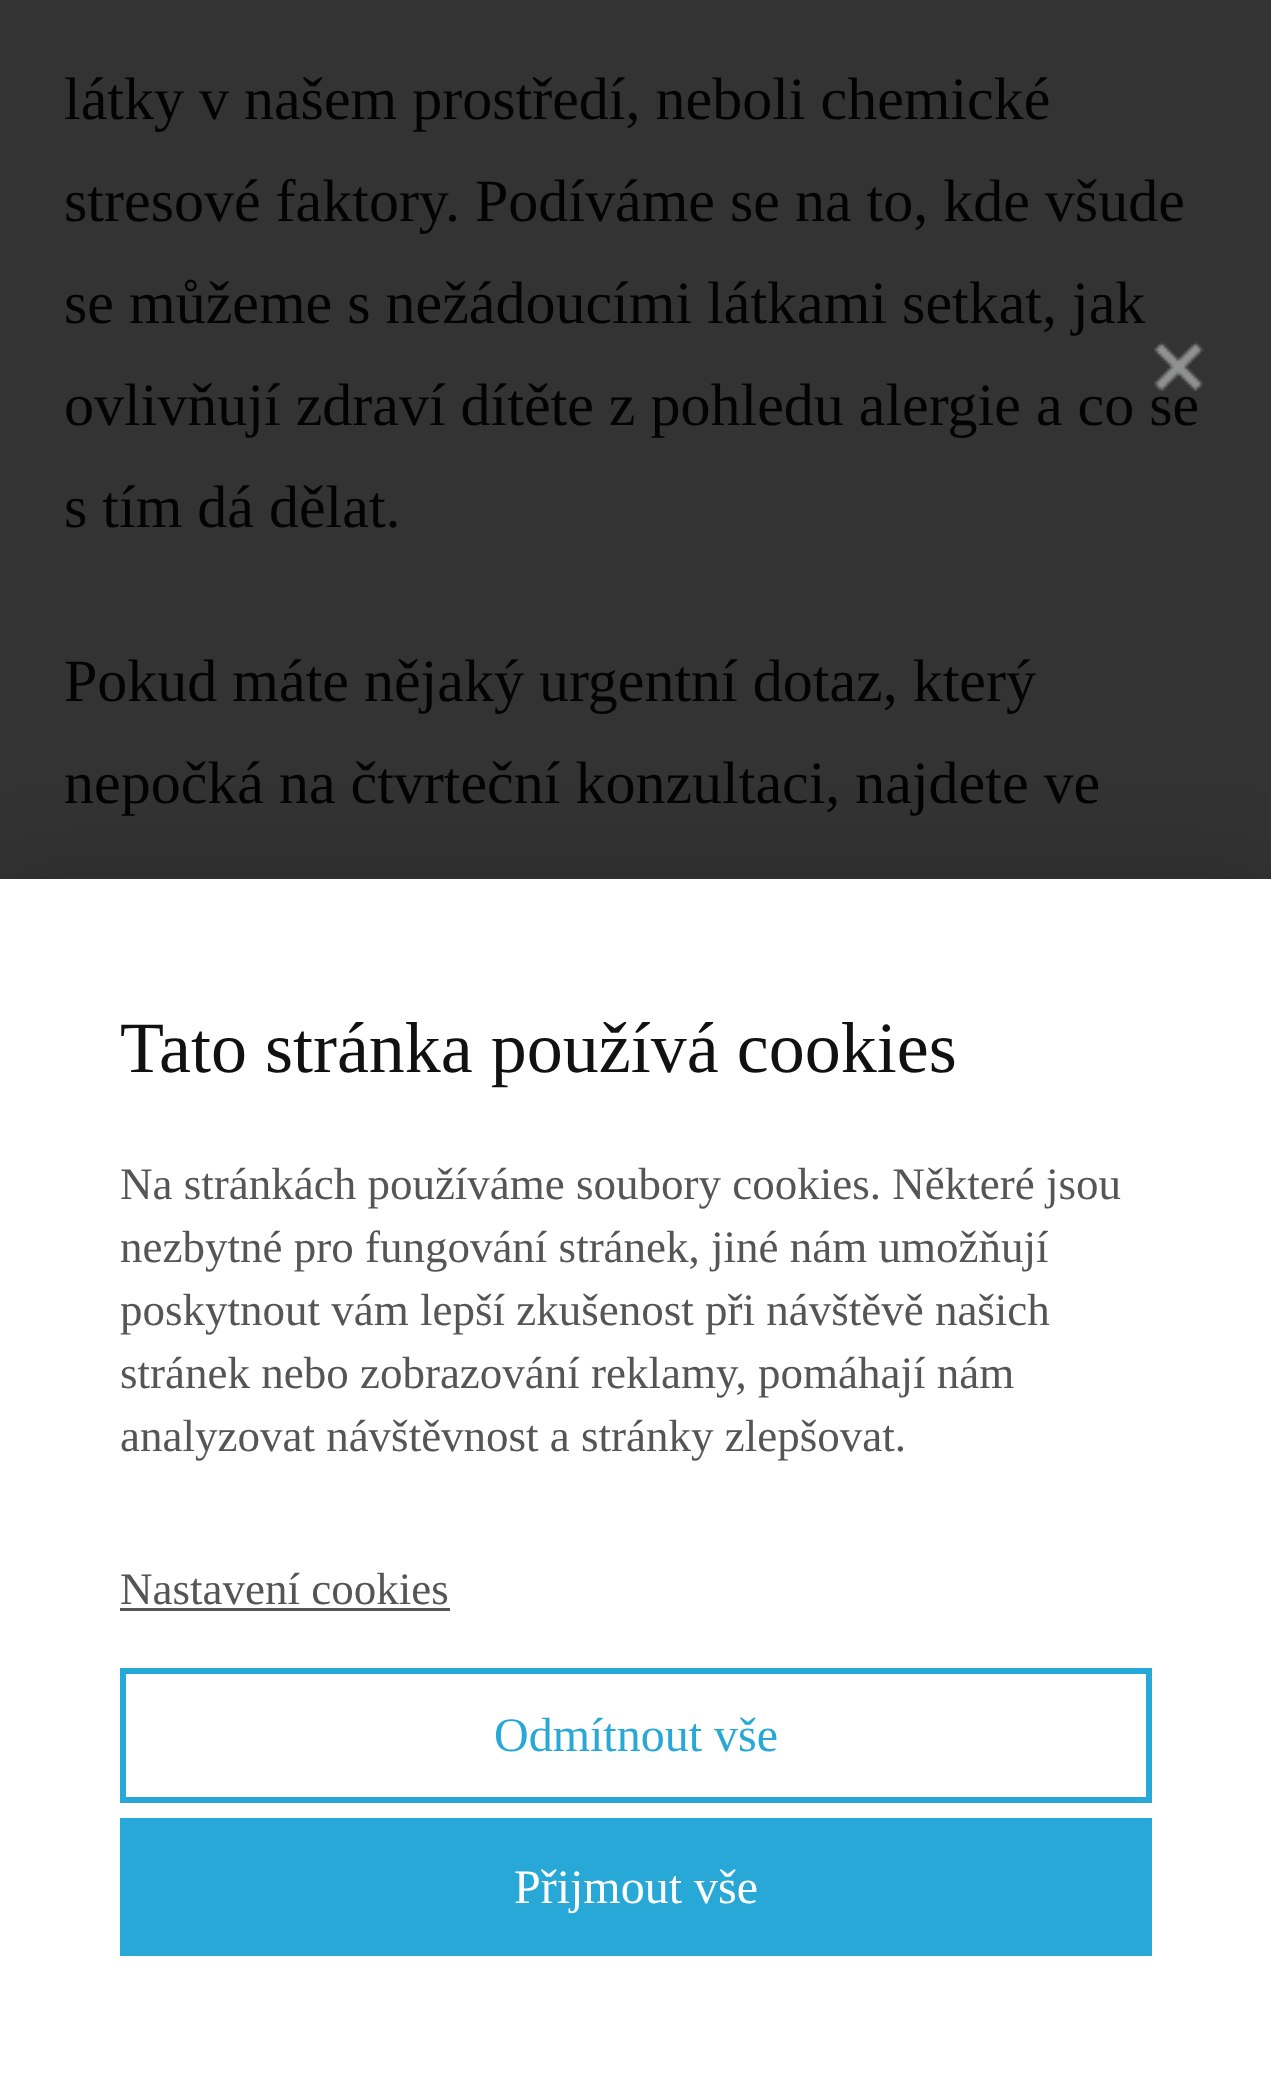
<!DOCTYPE html>
<meta charset="utf-8">
<style>body { margin: 0 } canvas { display: block }</style>
<canvas id="canvas" width="1271" height="2074"></canvas>
<script type="module">
  const canvas = document.getElementById("canvas");
  const ctx = canvas.getContext("2d");
  ctx.miterLimit = 4;
  ctx.fontKerning = "normal";
  async function loadImage(src) {
    const img = new Image();
    img.src = src;
    await img.decode();
    return img;
  }

  ctx.fillStyle = "#333333";
  ctx.fillRect(0, 0, 1271, 2074);
  ctx.font = "60px Liberation Serif";
  ctx.fillStyle = "#030303";
  ctx.fillText("látky v našem prostředí, neboli chemické", 64, 119);
  ctx.fillText("stresové faktory. Podíváme se na to, kde všude", 64, 221);
  ctx.fillText("se můžeme s nežádoucími látkami setkat, jak", 64, 323);
  ctx.fillText("ovlivňují zdraví dítěte z pohledu alergie a co se", 64, 425);
  ctx.fillText("s tím dá dělat.", 64, 527);
  ctx.fillText("Pokud máte nějaký urgentní dotaz, který", 64, 701);
  ctx.fillText("nepočká na čtvrteční konzultaci, najdete ve", 64, 803);
  ctx.fillStyle = "rgba(0, 0, 0, 0.2)";
  ctx.filter = "blur(45px)";
  ctx.beginPath();
  ctx.rect(0, 879, 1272, 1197);
  ctx.fill();
  ctx.filter = "none";
  ctx.fillStyle = "#ffffff";
  ctx.fillRect(0, 879, 1271, 1195);
  ctx.font = "72px Liberation Serif";
  ctx.fillStyle = "#111111";
  ctx.fillText("Tato stránka používá cookies", 120, 1072);
  ctx.font = "45px Liberation Serif";
  ctx.fillStyle = "#555555";
  ctx.fillText("Na stránkách používáme soubory cookies. Některé jsou", 120, 1199);
  ctx.fillText("nezbytné pro fungování stránek, jiné nám umožňují", 120, 1262);
  ctx.fillText("poskytnout vám lepší zkušenost při návštěvě našich", 120, 1325);
  ctx.fillText("stránek nebo zobrazování reklamy, pomáhají nám", 120, 1388);
  ctx.fillText("analyzovat návštěvnost a stránky zlepšovat.", 120, 1451);
  ctx.fillText("Nastavení cookies", 120, 1604);
  ctx.fillRect(120, 1608, 330, 3);
  ctx.strokeStyle = "#27a8d7";
  ctx.lineWidth = 6;
  ctx.strokeRect(123, 1671, 1026, 129);
  ctx.font = "48px Liberation Serif";
  ctx.fillStyle = "#27a8d7";
  ctx.fillText("Odmítnout vše", 494, 1751);
  ctx.fillRect(120, 1818, 1032, 138);
  ctx.fillStyle = "#ffffff";
  ctx.fillText("Přijmout vše", 514, 1903);
  ctx.drawImage(await loadImage("img1.png"), 1154, 341, 50, 50);
</script>
